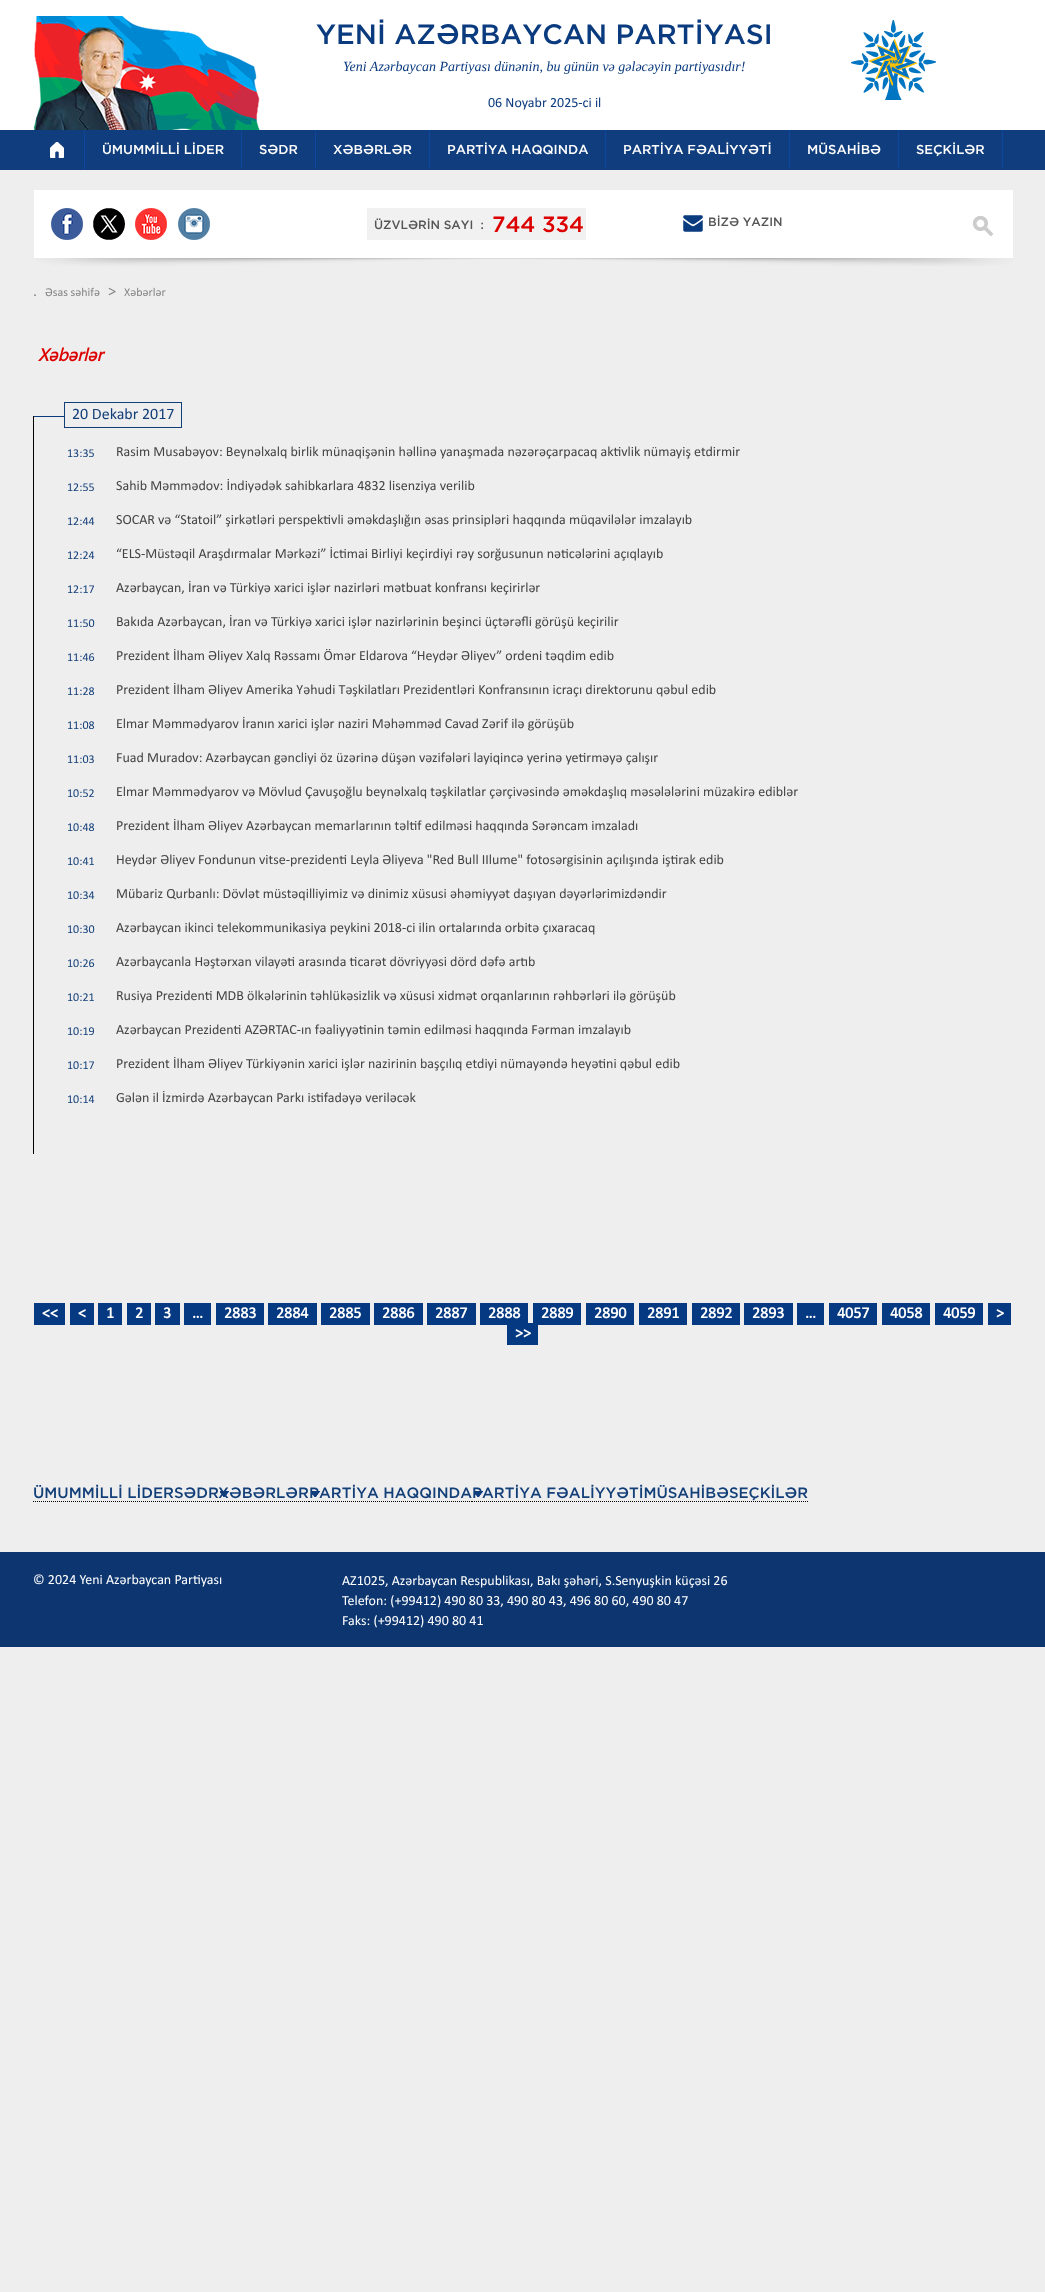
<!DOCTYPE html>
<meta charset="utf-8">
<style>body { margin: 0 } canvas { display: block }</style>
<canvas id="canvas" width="1045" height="2292"></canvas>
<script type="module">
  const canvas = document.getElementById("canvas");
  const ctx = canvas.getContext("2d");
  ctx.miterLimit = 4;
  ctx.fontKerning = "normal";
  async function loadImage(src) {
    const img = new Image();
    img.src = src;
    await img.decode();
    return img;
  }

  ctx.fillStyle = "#eeeeee";
  ctx.fillRect(0, 0, 1045, 2292);
  ctx.fillStyle = "#ffffff";
  ctx.fillRect(0, 0, 1045, 130);
  ctx.drawImage(await loadImage("img1.png"), 33, 16, 227, 114);
  ctx.font = "500 28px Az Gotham";
  ctx.fillStyle = "#0b3b7f";
  ctx.fillText("YENİ AZƏRBAYCAN PARTİYASI", 316, 44);
  ctx.font = "italic 14px Liberation Serif";
  ctx.fillText("Yeni Azərbaycan Partiyası dünənin, bu günün və gələcəyin partiyasıdır!", 343, 71);
  ctx.font = "14px Calibri";
  ctx.fillText("06 Noyabr 2025-ci il", 488, 107);
  ctx.drawImage(await loadImage("img2.png"), 851, 20, 85, 80);
  ctx.fillStyle = "#103d7d";
  ctx.fillRect(0, 130, 1045, 40);
  ctx.fillStyle = "#0c489e";
  ctx.fillRect(84, 130, 1, 40);
  ctx.drawImage(await loadImage("img3.png"), 50, 142, 14, 16);
  ctx.fillRect(241, 130, 1, 38);
  ctx.font = "500 13px Az Gotham";
  ctx.fillStyle = "#ffffff";
  ctx.fillText("ÜMUMMİLLİ LİDER", 102, 154);
  ctx.fillStyle = "#0c489e";
  ctx.fillRect(315, 130, 1, 38);
  ctx.fillStyle = "#ffffff";
  ctx.fillText("SƏDR", 259, 154);
  ctx.fillStyle = "#0c489e";
  ctx.fillRect(429, 130, 1, 38);
  ctx.fillStyle = "#ffffff";
  ctx.fillText("XƏBƏRLƏR", 333, 154);
  ctx.fillStyle = "#0c489e";
  ctx.fillRect(605, 130, 1, 38);
  ctx.fillStyle = "#ffffff";
  ctx.fillText("PARTİYA HAQQINDA", 447, 154);
  ctx.fillStyle = "#0c489e";
  ctx.fillRect(789, 130, 1, 38);
  ctx.fillStyle = "#ffffff";
  ctx.fillText("PARTİYA FƏALİYYƏTİ", 623, 154);
  ctx.fillStyle = "#0c489e";
  ctx.fillRect(898, 130, 1, 38);
  ctx.fillStyle = "#ffffff";
  ctx.fillText("MÜSAHİBƏ", 807, 154);
  ctx.fillStyle = "#0c489e";
  ctx.fillRect(1002, 130, 1, 38);
  ctx.fillStyle = "#ffffff";
  ctx.fillText("SEÇKİLƏR", 916, 154);
  ctx.drawImage(await loadImage("img4.png"), 34, 190, 979, 76);
  ctx.drawImage(await loadImage("img5.png"), 51, 208, 32, 32);
  ctx.drawImage(await loadImage("img6.png"), 93, 208, 32, 32);
  ctx.drawImage(await loadImage("img7.png"), 135, 208, 32, 32);
  ctx.drawImage(await loadImage("img8.png"), 178, 208, 32, 32);
  ctx.font = "500 12px Az Gotham";
  ctx.fillStyle = "#555555";
  ctx.fillText("ÜZVLƏRİN SAYI  :", 374, 229);
  ctx.font = "500 22px Az Gotham";
  ctx.fillStyle = "#dc0000";
  ctx.fillText("744 334", 492, 232);
  ctx.drawImage(await loadImage("img9.png"), 683, 215, 20, 17);
  ctx.font = "500 12px Az Gotham";
  ctx.fillStyle = "#555555";
  ctx.fillText("BİZƏ YAZIN", 708, 226);
  ctx.drawImage(await loadImage("img10.png"), 973, 216, 20, 20);
  ctx.font = "16px Calibri";
  ctx.fillStyle = "#858585";
  ctx.fillText(".", 33, 296);
  ctx.font = "12px Calibri";
  ctx.fillText("Əsas səhifə", 45, 296);
  ctx.font = "16px Calibri";
  ctx.fillText(">", 108, 296);
  ctx.font = "12px Calibri";
  ctx.fillText("Xəbərlər", 124, 296);
  ctx.font = "italic bold 17.5px Segoe UI";
  ctx.fillStyle = "#dc0000";
  ctx.fillText("Xəbərlər", 38, 361);
  ctx.fillStyle = "#000000";
  ctx.fillRect(33, 416, 1, 738);
  ctx.drawImage(await loadImage("img11.png"), 34, 416, 30, 1);
  ctx.strokeStyle = "#133f79";
  ctx.strokeRect(64.5, 402.5, 117, 25);
  ctx.font = "16px Calibri";
  ctx.fillStyle = "#133f79";
  ctx.fillText("20 Dekabr 2017", 72, 419);
  ctx.font = "12px Calibri";
  ctx.fillText("13:35", 67, 457);
  ctx.font = "14px Calibri";
  ctx.fillStyle = "#444444";
  ctx.fillText("Rasim Musabəyov: Beynəlxalq birlik münaqişənin həllinə yanaşmada nəzərəçarpacaq aktivlik nümayiş etdirmir", 116, 456);
  ctx.font = "12px Calibri";
  ctx.fillStyle = "#133f79";
  ctx.fillText("12:55", 67, 491);
  ctx.font = "14px Calibri";
  ctx.fillStyle = "#444444";
  ctx.fillText("Sahib Məmmədov: İndiyədək sahibkarlara 4832 lisenziya verilib", 116, 490);
  ctx.font = "12px Calibri";
  ctx.fillStyle = "#133f79";
  ctx.fillText("12:44", 67, 525);
  ctx.font = "14px Calibri";
  ctx.fillStyle = "#444444";
  ctx.fillText("SOCAR və “Statoil” şirkətləri perspektivli əməkdaşlığın əsas prinsipləri haqqında müqavilələr imzalayıb", 116, 524);
  ctx.font = "12px Calibri";
  ctx.fillStyle = "#133f79";
  ctx.fillText("12:24", 67, 559);
  ctx.font = "14px Calibri";
  ctx.fillStyle = "#444444";
  ctx.fillText("“ELS-Müstəqil Araşdırmalar Mərkəzi” İctimai Birliyi keçirdiyi rəy sorğusunun nəticələrini açıqlayıb", 116, 558);
  ctx.font = "12px Calibri";
  ctx.fillStyle = "#133f79";
  ctx.fillText("12:17", 67, 593);
  ctx.font = "14px Calibri";
  ctx.fillStyle = "#444444";
  ctx.fillText("Azərbaycan, İran və Türkiyə xarici işlər nazirləri mətbuat konfransı keçirirlər", 116, 592);
  ctx.font = "12px Calibri";
  ctx.fillStyle = "#133f79";
  ctx.fillText("11:50", 67, 627);
  ctx.font = "14px Calibri";
  ctx.fillStyle = "#444444";
  ctx.fillText("Bakıda Azərbaycan, İran və Türkiyə xarici işlər nazirlərinin beşinci üçtərəfli görüşü keçirilir", 116, 626);
  ctx.font = "12px Calibri";
  ctx.fillStyle = "#133f79";
  ctx.fillText("11:46", 67, 661);
  ctx.font = "14px Calibri";
  ctx.fillStyle = "#444444";
  ctx.fillText("Prezident İlham Əliyev Xalq Rəssamı Ömər Eldarova “Heydər Əliyev” ordeni təqdim edib", 116, 660);
  ctx.font = "12px Calibri";
  ctx.fillStyle = "#133f79";
  ctx.fillText("11:28", 67, 695);
  ctx.font = "14px Calibri";
  ctx.fillStyle = "#444444";
  ctx.fillText("Prezident İlham Əliyev Amerika Yəhudi Təşkilatları Prezidentləri Konfransının icraçı direktorunu qəbul edib", 116, 694);
  ctx.font = "12px Calibri";
  ctx.fillStyle = "#133f79";
  ctx.fillText("11:08", 67, 729);
  ctx.font = "14px Calibri";
  ctx.fillStyle = "#444444";
  ctx.fillText("Elmar Məmmədyarov İranın xarici işlər naziri Məhəmməd Cavad Zərif ilə görüşüb", 116, 728);
  ctx.font = "12px Calibri";
  ctx.fillStyle = "#133f79";
  ctx.fillText("11:03", 67, 763);
  ctx.font = "14px Calibri";
  ctx.fillStyle = "#444444";
  ctx.fillText("Fuad Muradov: Azərbaycan gəncliyi öz üzərinə düşən vəzifələri layiqincə yerinə yetirməyə çalışır", 116, 762);
  ctx.font = "12px Calibri";
  ctx.fillStyle = "#133f79";
  ctx.fillText("10:52", 67, 797);
  ctx.font = "14px Calibri";
  ctx.fillStyle = "#444444";
  ctx.fillText("Elmar Məmmədyarov və Mövlud Çavuşoğlu beynəlxalq təşkilatlar çərçivəsində əməkdaşlıq məsələlərini müzakirə ediblər", 116, 796);
  ctx.font = "12px Calibri";
  ctx.fillStyle = "#133f79";
  ctx.fillText("10:48", 67, 831);
  ctx.font = "14px Calibri";
  ctx.fillStyle = "#444444";
  ctx.fillText("Prezident İlham Əliyev Azərbaycan memarlarının təltif edilməsi haqqında Sərəncam imzaladı", 116, 830);
  ctx.font = "12px Calibri";
  ctx.fillStyle = "#133f79";
  ctx.fillText("10:41", 67, 865);
  ctx.font = "14px Calibri";
  ctx.fillStyle = "#444444";
  ctx.fillText("Heydər Əliyev Fondunun vitse-prezidenti Leyla Əliyeva \"Red Bull IIlume\" fotosərgisinin açılışında iştirak edib", 116, 864);
  ctx.font = "12px Calibri";
  ctx.fillStyle = "#133f79";
  ctx.fillText("10:34", 67, 899);
  ctx.font = "14px Calibri";
  ctx.fillStyle = "#444444";
  ctx.fillText("Mübariz Qurbanlı: Dövlət müstəqilliyimiz və dinimiz xüsusi əhəmiyyət daşıyan dəyərlərimizdəndir", 116, 898);
  ctx.font = "12px Calibri";
  ctx.fillStyle = "#133f79";
  ctx.fillText("10:30", 67, 933);
  ctx.font = "14px Calibri";
  ctx.fillStyle = "#444444";
  ctx.fillText("Azərbaycan ikinci telekommunikasiya peykini 2018-ci ilin ortalarında orbitə çıxaracaq", 116, 932);
  ctx.font = "12px Calibri";
  ctx.fillStyle = "#133f79";
  ctx.fillText("10:26", 67, 967);
  ctx.font = "14px Calibri";
  ctx.fillStyle = "#444444";
  ctx.fillText("Azərbaycanla Həştərxan vilayəti arasında ticarət dövriyyəsi dörd dəfə artıb", 116, 966);
  ctx.font = "12px Calibri";
  ctx.fillStyle = "#133f79";
  ctx.fillText("10:21", 67, 1001);
  ctx.font = "14px Calibri";
  ctx.fillStyle = "#444444";
  ctx.fillText("Rusiya Prezidenti MDB ölkələrinin təhlükəsizlik və xüsusi xidmət orqanlarının rəhbərləri ilə görüşüb", 116, 1000);
  ctx.font = "12px Calibri";
  ctx.fillStyle = "#133f79";
  ctx.fillText("10:19", 67, 1035);
  ctx.font = "14px Calibri";
  ctx.fillStyle = "#444444";
  ctx.fillText("Azərbaycan Prezidenti AZƏRTAC-ın fəaliyyətinin təmin edilməsi haqqında Fərman imzalayıb", 116, 1034);
  ctx.font = "12px Calibri";
  ctx.fillStyle = "#133f79";
  ctx.fillText("10:17", 67, 1069);
  ctx.font = "14px Calibri";
  ctx.fillStyle = "#444444";
  ctx.fillText("Prezident İlham Əliyev Türkiyənin xarici işlər nazirinin başçılıq etdiyi nümayəndə heyətini qəbul edib", 116, 1068);
  ctx.font = "12px Calibri";
  ctx.fillStyle = "#133f79";
  ctx.fillText("10:14", 67, 1103);
  ctx.font = "14px Calibri";
  ctx.fillStyle = "#444444";
  ctx.fillText("Gələn il İzmirdə Azərbaycan Parkı istifadəyə veriləcək", 116, 1102);
  ctx.fillStyle = "#053981";
  ctx.fillRect(34, 1303, 31, 22);
  ctx.font = "bold 16px Calibri";
  ctx.fillStyle = "#ffffff";
  ctx.fillText("<<", 42, 1318);
  ctx.fillStyle = "#053981";
  ctx.fillRect(70, 1303, 24, 22);
  ctx.fillStyle = "#ffffff";
  ctx.fillText("<", 78, 1318);
  ctx.fillStyle = "#053981";
  ctx.fillRect(98, 1303, 24, 22);
  ctx.fillStyle = "#ffffff";
  ctx.fillText("1", 106, 1318);
  ctx.fillStyle = "#053981";
  ctx.fillRect(127, 1303, 24, 22);
  ctx.fillStyle = "#ffffff";
  ctx.fillText("2", 135, 1318);
  ctx.fillStyle = "#053981";
  ctx.fillRect(155, 1303, 25, 22);
  ctx.fillStyle = "#ffffff";
  ctx.fillText("3", 163, 1318);
  ctx.fillStyle = "#053981";
  ctx.fillRect(184, 1303, 27, 22);
  ctx.fillStyle = "#ffffff";
  ctx.fillText("…", 192, 1318);
  ctx.fillStyle = "#053981";
  ctx.fillRect(216, 1303, 48, 22);
  ctx.fillStyle = "#ffffff";
  ctx.fillText("2883", 224, 1318);
  ctx.fillStyle = "#053981";
  ctx.fillRect(268, 1303, 49, 22);
  ctx.fillStyle = "#ffffff";
  ctx.fillText("2884", 276, 1318);
  ctx.fillStyle = "#053981";
  ctx.fillRect(321, 1303, 49, 22);
  ctx.fillStyle = "#ffffff";
  ctx.fillText("2885", 329, 1318);
  ctx.fillStyle = "#053981";
  ctx.fillRect(374, 1303, 49, 22);
  ctx.fillStyle = "#ffffff";
  ctx.fillText("2886", 382, 1318);
  ctx.fillStyle = "#053981";
  ctx.fillRect(427, 1303, 49, 22);
  ctx.fillStyle = "#ffffff";
  ctx.fillText("2887", 435, 1318);
  ctx.fillStyle = "#053981";
  ctx.fillRect(480, 1303, 48, 22);
  ctx.fillStyle = "#ffffff";
  ctx.fillText("2888", 488, 1318);
  ctx.fillStyle = "#053981";
  ctx.fillRect(533, 1303, 48, 22);
  ctx.fillStyle = "#ffffff";
  ctx.fillText("2889", 541, 1318);
  ctx.fillStyle = "#053981";
  ctx.fillRect(586, 1303, 48, 22);
  ctx.fillStyle = "#ffffff";
  ctx.fillText("2890", 594, 1318);
  ctx.fillStyle = "#053981";
  ctx.fillRect(639, 1303, 48, 22);
  ctx.fillStyle = "#ffffff";
  ctx.fillText("2891", 647, 1318);
  ctx.fillStyle = "#053981";
  ctx.fillRect(692, 1303, 48, 22);
  ctx.fillStyle = "#ffffff";
  ctx.fillText("2892", 700, 1318);
  ctx.fillStyle = "#053981";
  ctx.fillRect(744, 1303, 49, 22);
  ctx.fillStyle = "#ffffff";
  ctx.fillText("2893", 752, 1318);
  ctx.fillStyle = "#053981";
  ctx.fillRect(797, 1303, 27, 22);
  ctx.fillStyle = "#ffffff";
  ctx.fillText("…", 805, 1318);
  ctx.fillStyle = "#053981";
  ctx.fillRect(829, 1303, 48, 22);
  ctx.fillStyle = "#ffffff";
  ctx.fillText("4057", 837, 1318);
  ctx.fillStyle = "#053981";
  ctx.fillRect(882, 1303, 48, 22);
  ctx.fillStyle = "#ffffff";
  ctx.fillText("4058", 890, 1318);
  ctx.fillStyle = "#053981";
  ctx.fillRect(935, 1303, 48, 22);
  ctx.fillStyle = "#ffffff";
  ctx.fillText("4059", 943, 1318);
  ctx.fillStyle = "#053981";
  ctx.fillRect(988, 1303, 23, 22);
  ctx.fillStyle = "#ffffff";
  ctx.fillText(">", 996, 1318);
  ctx.fillStyle = "#053981";
  ctx.fillRect(507, 1323, 31, 22);
  ctx.fillStyle = "#ffffff";
  ctx.fillText(">>", 515, 1338);
  ctx.beginPath();
  ctx.moveTo(33, 1501.5);
  ctx.lineTo(173, 1501.5);
  ctx.strokeStyle = "#000000";
  ctx.setLineDash([1, 1]);
  ctx.stroke();
  ctx.font = "500 15px Az Gotham";
  ctx.fillStyle = "#133f79";
  ctx.fillText("ÜMUMMİLLİ LİDERSƏDR", 33, 1498);
  ctx.drawImage(await loadImage("img12.png"), 219, 1491, 10, 6);
  ctx.beginPath();
  ctx.moveTo(218, 1501.5);
  ctx.lineTo(309, 1501.5);
  ctx.stroke();
  ctx.fillText("XƏBƏRLƏR", 218, 1498);
  ctx.drawImage(await loadImage("img12.png"), 310, 1491, 10, 6);
  ctx.beginPath();
  ctx.moveTo(309, 1501.5);
  ctx.lineTo(472, 1501.5);
  ctx.stroke();
  ctx.fillText("PARTİYA HAQQINDA", 309, 1498);
  ctx.drawImage(await loadImage("img12.png"), 473, 1491, 10, 6);
  ctx.beginPath();
  ctx.moveTo(472, 1501.5);
  ctx.lineTo(644, 1501.5);
  ctx.stroke();
  ctx.fillText("PARTİYA FƏALİYYƏTİMÜSAHİBƏSEÇKİLƏR", 472, 1498);
  ctx.beginPath();
  ctx.moveTo(173, 1501.5);
  ctx.lineTo(218, 1501.5);
  ctx.stroke();
  ctx.beginPath();
  ctx.moveTo(644, 1501.5);
  ctx.lineTo(729, 1501.5);
  ctx.stroke();
  ctx.beginPath();
  ctx.moveTo(729, 1501.5);
  ctx.lineTo(809, 1501.5);
  ctx.stroke();
  ctx.fillStyle = "#0d3670";
  ctx.fillRect(0, 1552, 1045, 95);
  ctx.font = "14px Calibri";
  ctx.fillStyle = "#ffffff";
  ctx.fillText("© 2024 Yeni Azərbaycan Partiyası", 33, 1584);
  ctx.fillText("AZ1025, Azərbaycan Respublikası, Bakı şəhəri, S.Senyuşkin küçəsi 26", 342, 1585);
  ctx.fillText("Telefon: (+99412) 490 80 33, 490 80 43, 496 80 60, 490 80 47", 342, 1605);
  ctx.fillText("Faks: (+99412) 490 80 41", 342, 1625);
</script>
